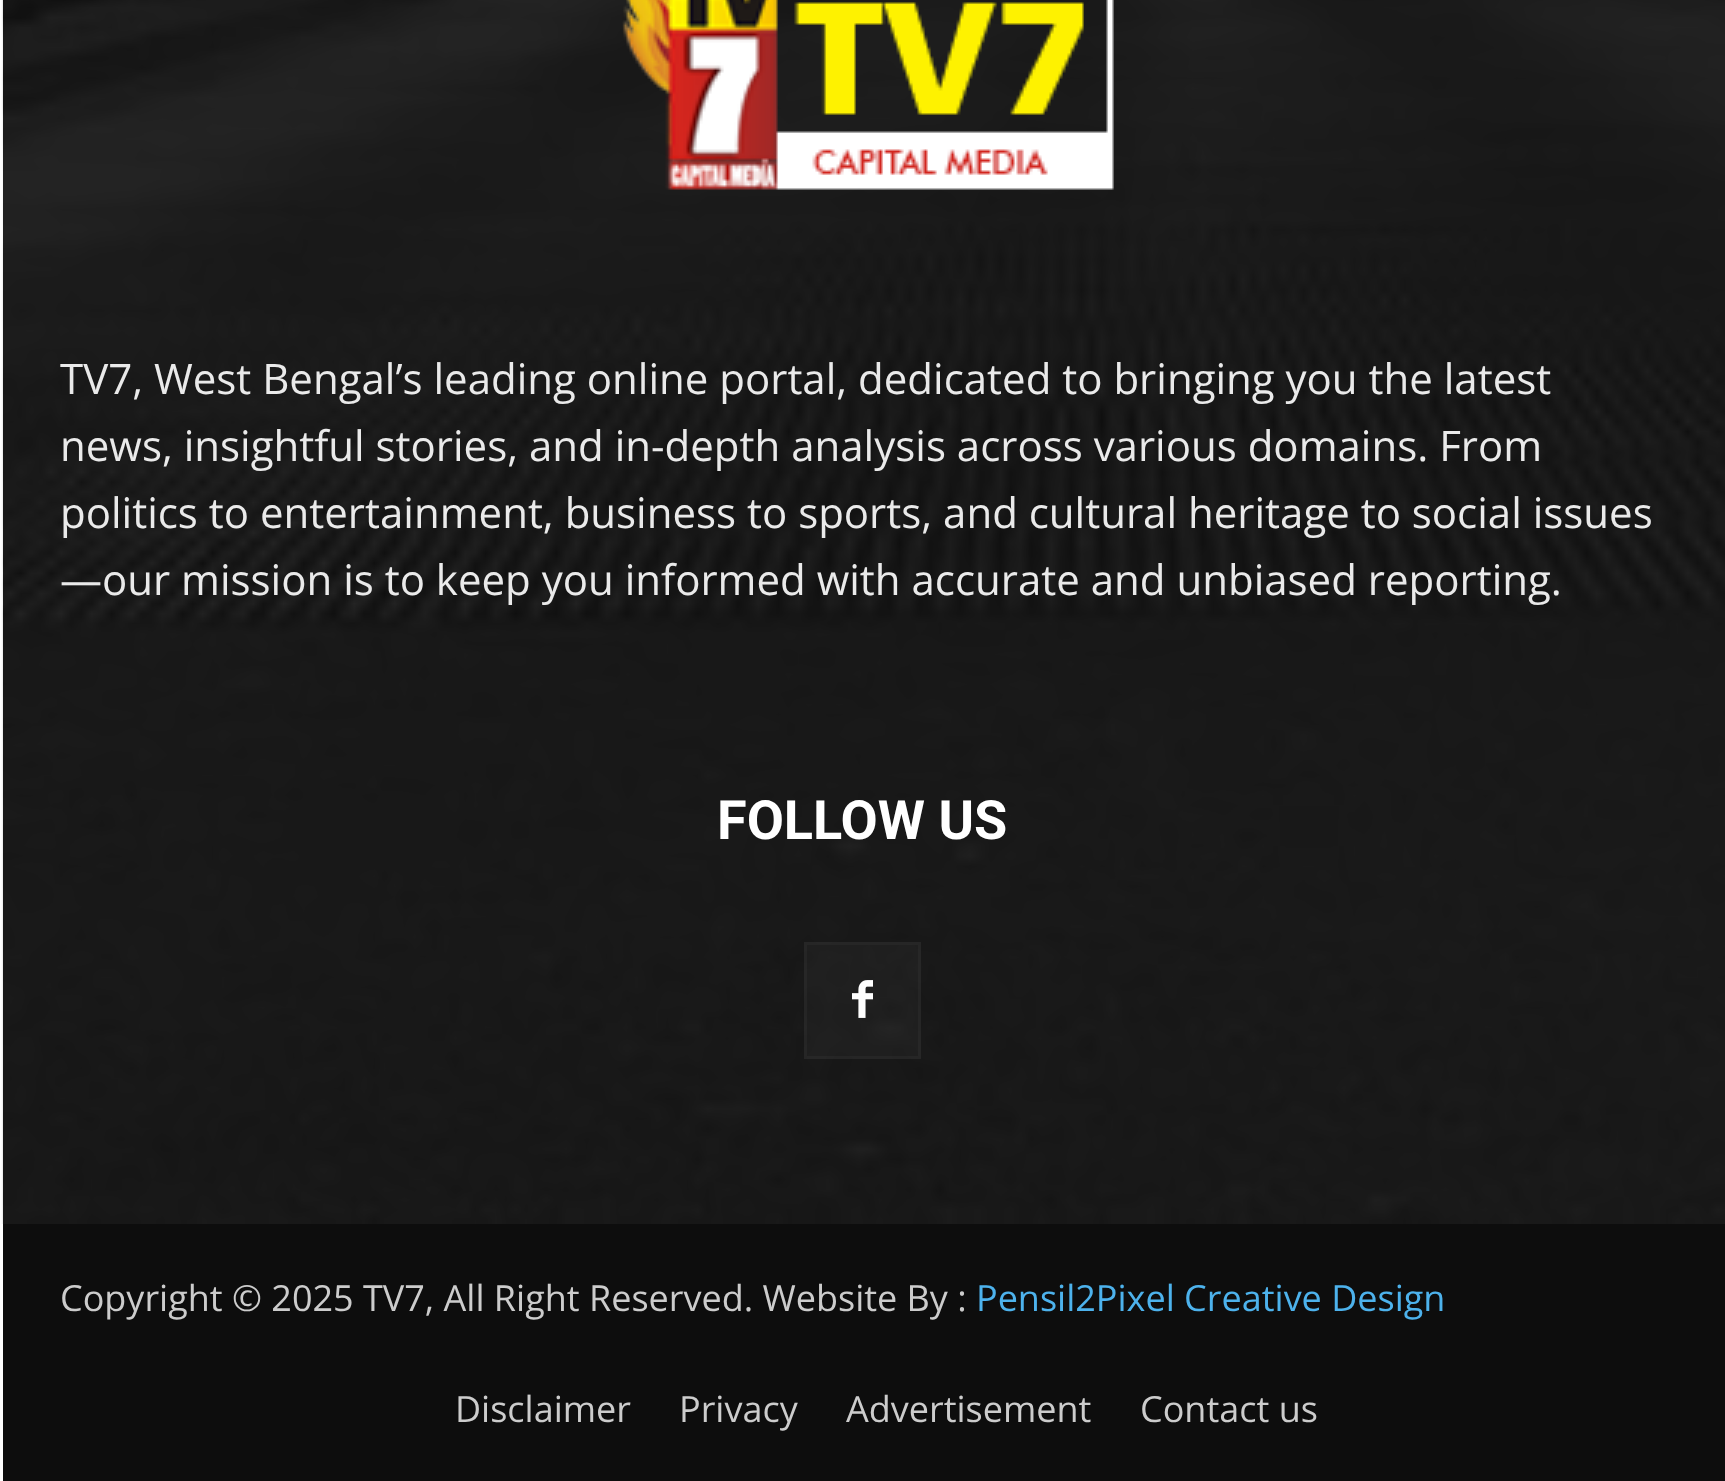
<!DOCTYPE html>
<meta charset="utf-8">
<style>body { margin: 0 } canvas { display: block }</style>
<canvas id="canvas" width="1725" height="1481"></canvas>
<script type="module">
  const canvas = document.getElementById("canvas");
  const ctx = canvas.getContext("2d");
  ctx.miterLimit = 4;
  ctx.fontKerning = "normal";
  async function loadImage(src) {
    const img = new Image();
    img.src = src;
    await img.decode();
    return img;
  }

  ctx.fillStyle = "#ffffff";
  ctx.fillRect(0, 0, 1725, 1481);
  ctx.fillStyle = "#111111";
  ctx.fillRect(3, 0, 1722, 1224);
  ctx.drawImage(await loadImage("img1.png"), 1, 0, 1724, 1224);
  ctx.drawImage(await loadImage("img2.png"), 622, 0, 492, 190);
  ctx.font = "42px Open Sans";
  ctx.fillStyle = "#eaeaea";
  ctx.fillText("TV7, West Bengal’s leading online portal, dedicated to bringing you the latest", 60, 394);
  ctx.fillText("news, insightful stories, and in-depth analysis across various domains. From", 60, 461);
  ctx.fillText("politics to entertainment, business to sports, and cultural heritage to social issues", 60, 528);
  ctx.fillText("—our mission is to keep you informed with accurate and unbiased reporting.", 60, 595);
  ctx.font = "bold 54px Roboto";
  ctx.fillStyle = "#ffffff";
  ctx.fillText("FOLLOW US", 717, 839);
  ctx.fillStyle = "rgba(255, 255, 255, 0.03)";
  ctx.fillRect(804, 942, 117, 117);
  ctx.strokeStyle = "rgba(255, 255, 255, 0.03)";
  ctx.lineWidth = 3;
  ctx.strokeRect(805.5, 943.5, 114, 114);
  ctx.drawImage(await loadImage("img3.png"), 852, 980, 21, 38);
  ctx.fillStyle = "#0d0d0d";
  ctx.fillRect(3, 1224, 1722, 257);
  ctx.font = "36px Open Sans";
  ctx.fillStyle = "#cccccc";
  ctx.fillText("Copyright © 2025 TV7, All Right Reserved. Website By :", 60, 1311);
  ctx.fillStyle = "#4db2ec";
  ctx.fillText("Pensil2Pixel Creative Design", 976, 1311);
  ctx.fillStyle = "#cccccc";
  ctx.fillText("Disclaimer", 455, 1422);
  ctx.fillText("Privacy", 679, 1422);
  ctx.fillText("Advertisement", 846, 1422);
  ctx.fillText("Contact us", 1140, 1422);
</script>
